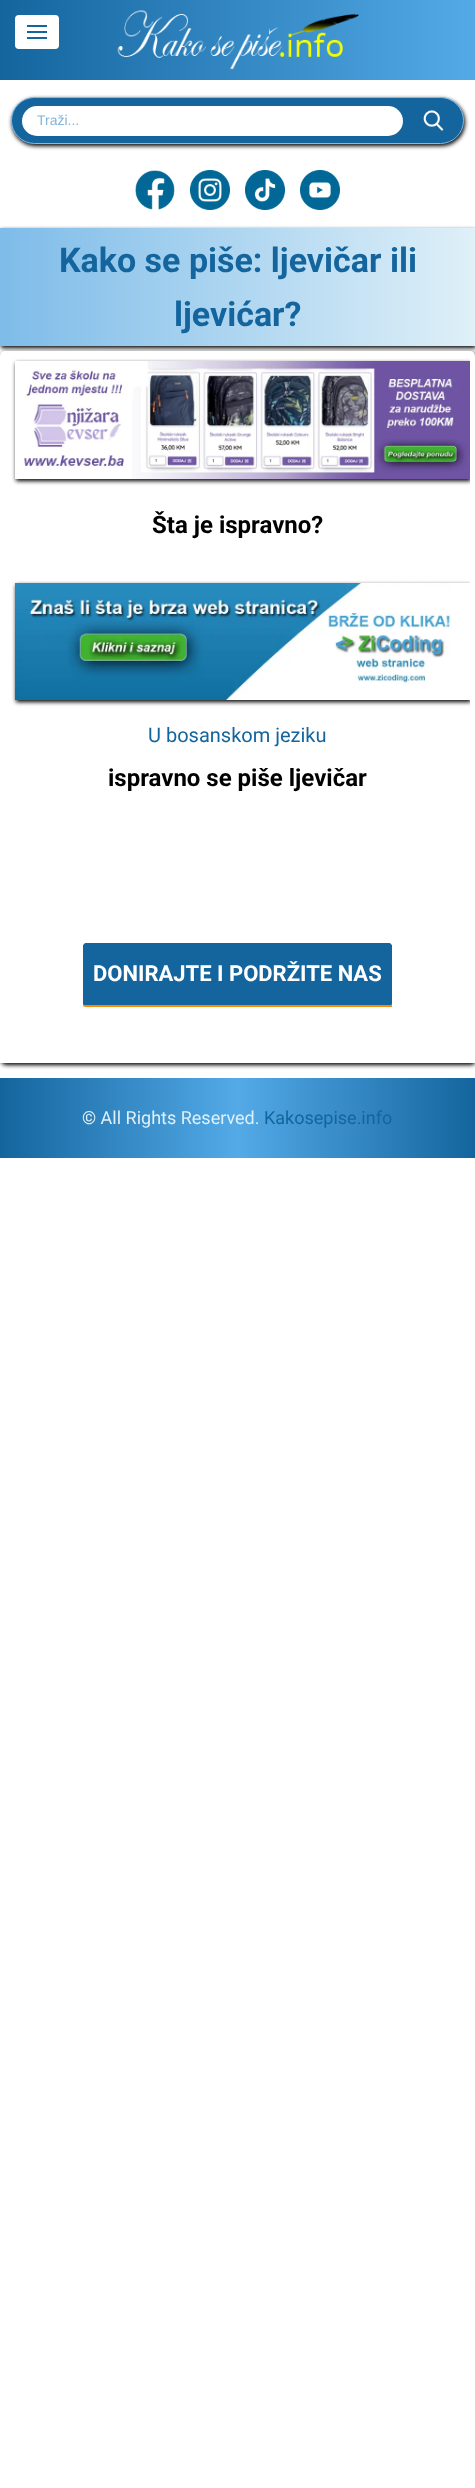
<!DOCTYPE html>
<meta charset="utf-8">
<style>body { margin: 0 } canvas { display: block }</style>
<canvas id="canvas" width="475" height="2488"></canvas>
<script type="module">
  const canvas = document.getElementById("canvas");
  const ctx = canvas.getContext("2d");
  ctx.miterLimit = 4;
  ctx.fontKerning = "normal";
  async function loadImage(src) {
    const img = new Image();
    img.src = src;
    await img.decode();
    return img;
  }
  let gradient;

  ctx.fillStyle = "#ffffff";
  ctx.fillRect(0, 0, 475, 2488);
  gradient = ctx.createLinearGradient(0, 40, 475, 40);
  gradient.addColorStop(0, "#14659e");
  gradient.addColorStop(1, "#53aae7");
  ctx.fillStyle = gradient;
  ctx.fillRect(0, 0, 475, 80);
  ctx.fillStyle = "#ffffff";
  ctx.beginPath();
  ctx.roundRect(15, 15, 44, 34, 4);
  ctx.fill();
  ctx.fillStyle = "#14659e";
  ctx.fillRect(27, 31, 20, 2);
  ctx.fillRect(27, 25, 20, 2);
  ctx.fillRect(27, 37, 20, 2);
  ctx.drawImage(await loadImage("img1.png"), 117, 10, 242, 60);
  ctx.fillStyle = "#000000";
  ctx.filter = "blur(2px)";
  ctx.beginPath();
  ctx.roundRect(12, 99, 453, 47, 23.5);
  ctx.fill();
  ctx.filter = "none";
  ctx.fillStyle = "#14659e";
  ctx.beginPath();
  ctx.roundRect(11.5, 97.5, 452, 46, 23);
  ctx.fill();
  ctx.strokeStyle = "#7ebce9";
  ctx.stroke();
  ctx.fillStyle = "#ffffff";
  ctx.beginPath();
  ctx.roundRect(22, 106, 381, 30, 15);
  ctx.fill();
  ctx.font = "14px Liberation Sans";
  ctx.fillStyle = "#84b5d8";
  ctx.fillText("Traži...", 37, 125);
  ctx.drawImage(await loadImage("img2.png"), 423, 110, 21, 21);
  ctx.drawImage(await loadImage("img3.png"), 135, 170, 40, 40);
  ctx.drawImage(await loadImage("img4.png"), 190, 170, 40, 40);
  ctx.drawImage(await loadImage("img5.png"), 245, 170, 40, 40);
  ctx.drawImage(await loadImage("img6.png"), 300, 170, 40, 40);
  ctx.fillStyle = "#000000";
  ctx.filter = "blur(2px)";
  ctx.beginPath();
  ctx.rect(1, 230, 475, 118);
  ctx.fill();
  ctx.filter = "none";
  gradient = ctx.createLinearGradient(0, 287, 475, 287);
  gradient.addColorStop(0, "#7ebce9");
  gradient.addColorStop(1, "#dff0f8");
  ctx.fillStyle = gradient;
  ctx.fillRect(0, 228, 475, 118);
  ctx.font = "bold 34px Roboto";
  ctx.fillStyle = "#14659e";
  ctx.fillText("Kako se piše: ljevičar ili", 59, 272);
  ctx.fillText("ljevićar?", 174, 326);
  ctx.fillStyle = "#000000";
  ctx.filter = "blur(2px)";
  ctx.beginPath();
  ctx.roundRect(1, 353, 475, 712, 5);
  ctx.fill();
  ctx.filter = "none";
  ctx.fillStyle = "#ffffff";
  ctx.beginPath();
  ctx.roundRect(0, 351, 475, 712, [5, 5, 0, 0]);
  ctx.fill();
  ctx.save();
  ctx.beginPath();
  ctx.rect(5, 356, 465, 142);
  ctx.clip();
  ctx.beginPath();
  ctx.moveTo(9, 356);
  ctx.lineTo(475, 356);
  ctx.lineTo(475, 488);
  ctx.lineTo(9, 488);
  ctx.closePath();
  ctx.moveTo(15, 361);
  ctx.lineTo(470, 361);
  ctx.lineTo(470, 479);
  ctx.lineTo(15, 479);
  ctx.closePath();
  ctx.clip("evenodd");
  ctx.fillStyle = "#000000";
  ctx.filter = "blur(2px)";
  ctx.beginPath();
  ctx.rect(16, 363, 455, 118);
  ctx.fill();
  ctx.filter = "none";
  ctx.restore();
  ctx.drawImage(await loadImage("img7.png"), 24, 361, 446, 118);
  ctx.font = "bold 24px Roboto";
  ctx.fillStyle = "#000000";
  ctx.fillText("Šta je ispravno?", 152, 533);
  ctx.save();
  ctx.beginPath();
  ctx.rect(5, 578, 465, 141);
  ctx.clip();
  ctx.beginPath();
  ctx.moveTo(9, 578);
  ctx.lineTo(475, 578);
  ctx.lineTo(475, 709);
  ctx.lineTo(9, 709);
  ctx.closePath();
  ctx.moveTo(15, 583);
  ctx.lineTo(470, 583);
  ctx.lineTo(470, 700);
  ctx.lineTo(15, 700);
  ctx.closePath();
  ctx.clip("evenodd");
  ctx.filter = "blur(2px)";
  ctx.beginPath();
  ctx.rect(16, 585, 455, 117);
  ctx.fill();
  ctx.filter = "none";
  ctx.restore();
  ctx.drawImage(await loadImage("img8.png"), 15, 583, 436, 117);
  ctx.font = "20px Roboto";
  ctx.fillStyle = "#14659e";
  ctx.fillText("U bosanskom jeziku", 148, 742);
  ctx.font = "bold 24px Roboto";
  ctx.fillStyle = "#000000";
  ctx.fillText("ispravno se piše ljevičar", 108, 786);
  ctx.fillStyle = "#14659e";
  ctx.beginPath();
  ctx.moveTo(85, 943);
  ctx.lineTo(390, 943);
  ctx.bezierCurveTo(391, 943, 392, 944, 392, 945);
  ctx.lineTo(392, 1004);
  ctx.bezierCurveTo(392, 1005, 391, 1005, 390, 1005);
  ctx.lineTo(85, 1005);
  ctx.bezierCurveTo(84, 1005, 83, 1005, 83, 1004);
  ctx.lineTo(83, 945);
  ctx.bezierCurveTo(83, 944, 84, 943, 85, 943);
  ctx.closePath();
  ctx.fill();
  ctx.fillStyle = "#ffffff";
  ctx.beginPath();
  ctx.moveTo(85, 942);
  ctx.lineTo(83, 943);
  ctx.lineTo(84, 944);
  ctx.lineTo(85, 943);
  ctx.lineTo(390, 943);
  ctx.lineTo(391, 944);
  ctx.lineTo(392, 943);
  ctx.lineTo(390, 942);
  ctx.closePath();
  ctx.fill();
  ctx.beginPath();
  ctx.moveTo(393, 1004);
  ctx.bezierCurveTo(393, 997, 394, 945, 392, 943);
  ctx.lineTo(391, 944);
  ctx.bezierCurveTo(394, 946, 392, 951, 392, 955);
  ctx.lineTo(392, 1005);
  ctx.lineTo(392, 1006);
  ctx.closePath();
  ctx.fill();
  ctx.fillStyle = "#fe8904";
  ctx.beginPath();
  ctx.moveTo(85, 1007);
  ctx.lineTo(392, 1007);
  ctx.lineTo(392, 1006);
  ctx.lineTo(392, 1005);
  ctx.lineTo(390, 1005);
  ctx.lineTo(85, 1005);
  ctx.lineTo(83, 1005);
  ctx.lineTo(83, 1006);
  ctx.closePath();
  ctx.fill();
  ctx.fillStyle = "#ffffff";
  ctx.beginPath();
  ctx.moveTo(82, 945);
  ctx.bezierCurveTo(82, 952, 81, 1004, 83, 1006);
  ctx.lineTo(83, 1005);
  ctx.lineTo(83, 955);
  ctx.bezierCurveTo(83, 951, 81, 946, 84, 944);
  ctx.lineTo(83, 943);
  ctx.closePath();
  ctx.fill();
  ctx.font = "bold 22px Roboto";
  ctx.fillText("DONIRAJTE I PODRŽITE NAS", 93, 981);
  gradient = ctx.createLinearGradient(0, 1118, 475, 1118);
  gradient.addColorStop(0, "#14659e");
  gradient.addColorStop(0.5, "#53aae7");
  gradient.addColorStop(1, "#14659e");
  ctx.fillStyle = gradient;
  ctx.fillRect(0, 1078, 475, 80);
  ctx.font = "18px Roboto";
  ctx.fillStyle = "#dff0f8";
  ctx.fillText("© All Rights Reserved.", 82, 1124);
  ctx.fillStyle = "#14659e";
  ctx.fillText("Kakosepise.info", 264, 1124);
</script>
